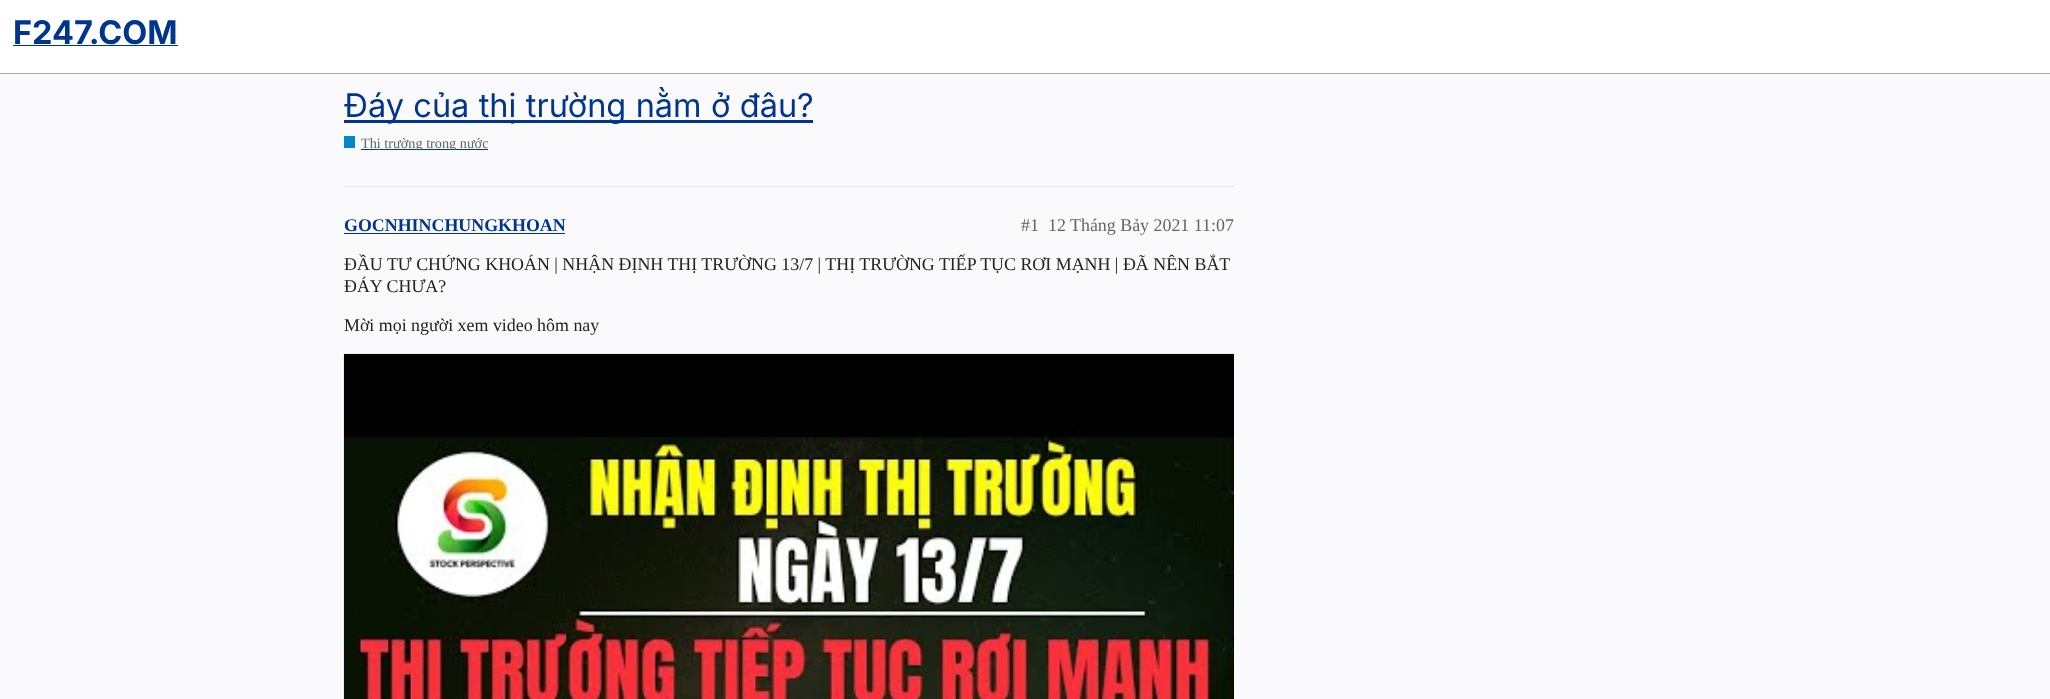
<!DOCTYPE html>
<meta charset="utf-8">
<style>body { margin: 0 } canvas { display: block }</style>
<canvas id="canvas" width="2050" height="699"></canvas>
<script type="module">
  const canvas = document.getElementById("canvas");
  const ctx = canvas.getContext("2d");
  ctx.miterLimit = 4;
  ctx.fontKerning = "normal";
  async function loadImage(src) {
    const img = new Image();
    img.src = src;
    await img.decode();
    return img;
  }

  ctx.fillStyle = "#fafafd";
  ctx.fillRect(0, 0, 2050, 699);
  ctx.fillStyle = "#ffffff";
  ctx.fillRect(0, 0, 2050, 73);
  ctx.fillStyle = "#afafaf";
  ctx.fillRect(0, 73, 2050, 1);
  ctx.font = "bold 32.5px Inter";
  ctx.fillStyle = "#00358e";
  ctx.fillText("F247.COM", 13, 44);
  ctx.fillRect(13, 45, 165, 1);
  ctx.fillRect(344, 120, 469, 3);
  ctx.wordSpacing = "0.25px";
  ctx.font = "32.5px Inter";
  ctx.fillText("Đáy của thị trường nằm ở đâu?", 344, 117);
  ctx.fillStyle = "#0088cc";
  ctx.fillRect(344, 136, 11, 12);
  ctx.fillStyle = "#00358e";
  ctx.fillRect(361, 149, 127, 1);
  ctx.save();
  ctx.beginPath();
  ctx.rect(361, 135, 127, 15);
  ctx.clip();
  ctx.wordSpacing = "0px";
  ctx.font = "14.25px Liberation Serif";
  ctx.fillStyle = "#646464";
  ctx.fillText("Thị trường trong nước", 361, 148);
  ctx.restore();
  ctx.fillStyle = "#e9e9e9";
  ctx.fillRect(344, 186, 890, 1);
  ctx.wordSpacing = "0px";
  ctx.font = "bold 17.9px Liberation Serif";
  ctx.fillStyle = "#00358e";
  ctx.fillText("GOCNHINCHUNGKHOAN", 344, 231);
  ctx.fillRect(344, 233, 221, 1);
  ctx.font = "17.9px Liberation Serif";
  ctx.fillStyle = "#646464";
  ctx.fillText("#1", 1021, 231);
  ctx.fillText("12 Tháng Bảy 2021 11:07", 1048, 231);
  ctx.fillStyle = "#222222";
  ctx.fillText("ĐẦU TƯ CHỨNG KHOÁN | NHẬN ĐỊNH THỊ TRƯỜNG 13/7 | THỊ TRƯỜNG TIẾP TỤC RƠI MẠNH | ĐÃ NÊN BẮT", 344, 270);
  ctx.fillText("ĐÁY CHƯA?", 344, 292);
  ctx.fillText("Mời mọi người xem video hôm nay", 344, 331);
  ctx.fillStyle = "#000000";
  ctx.fillRect(1233, 354, 1, 345);
  ctx.drawImage(await loadImage("img1.png"), 343, 353, 891, 346);
</script>
